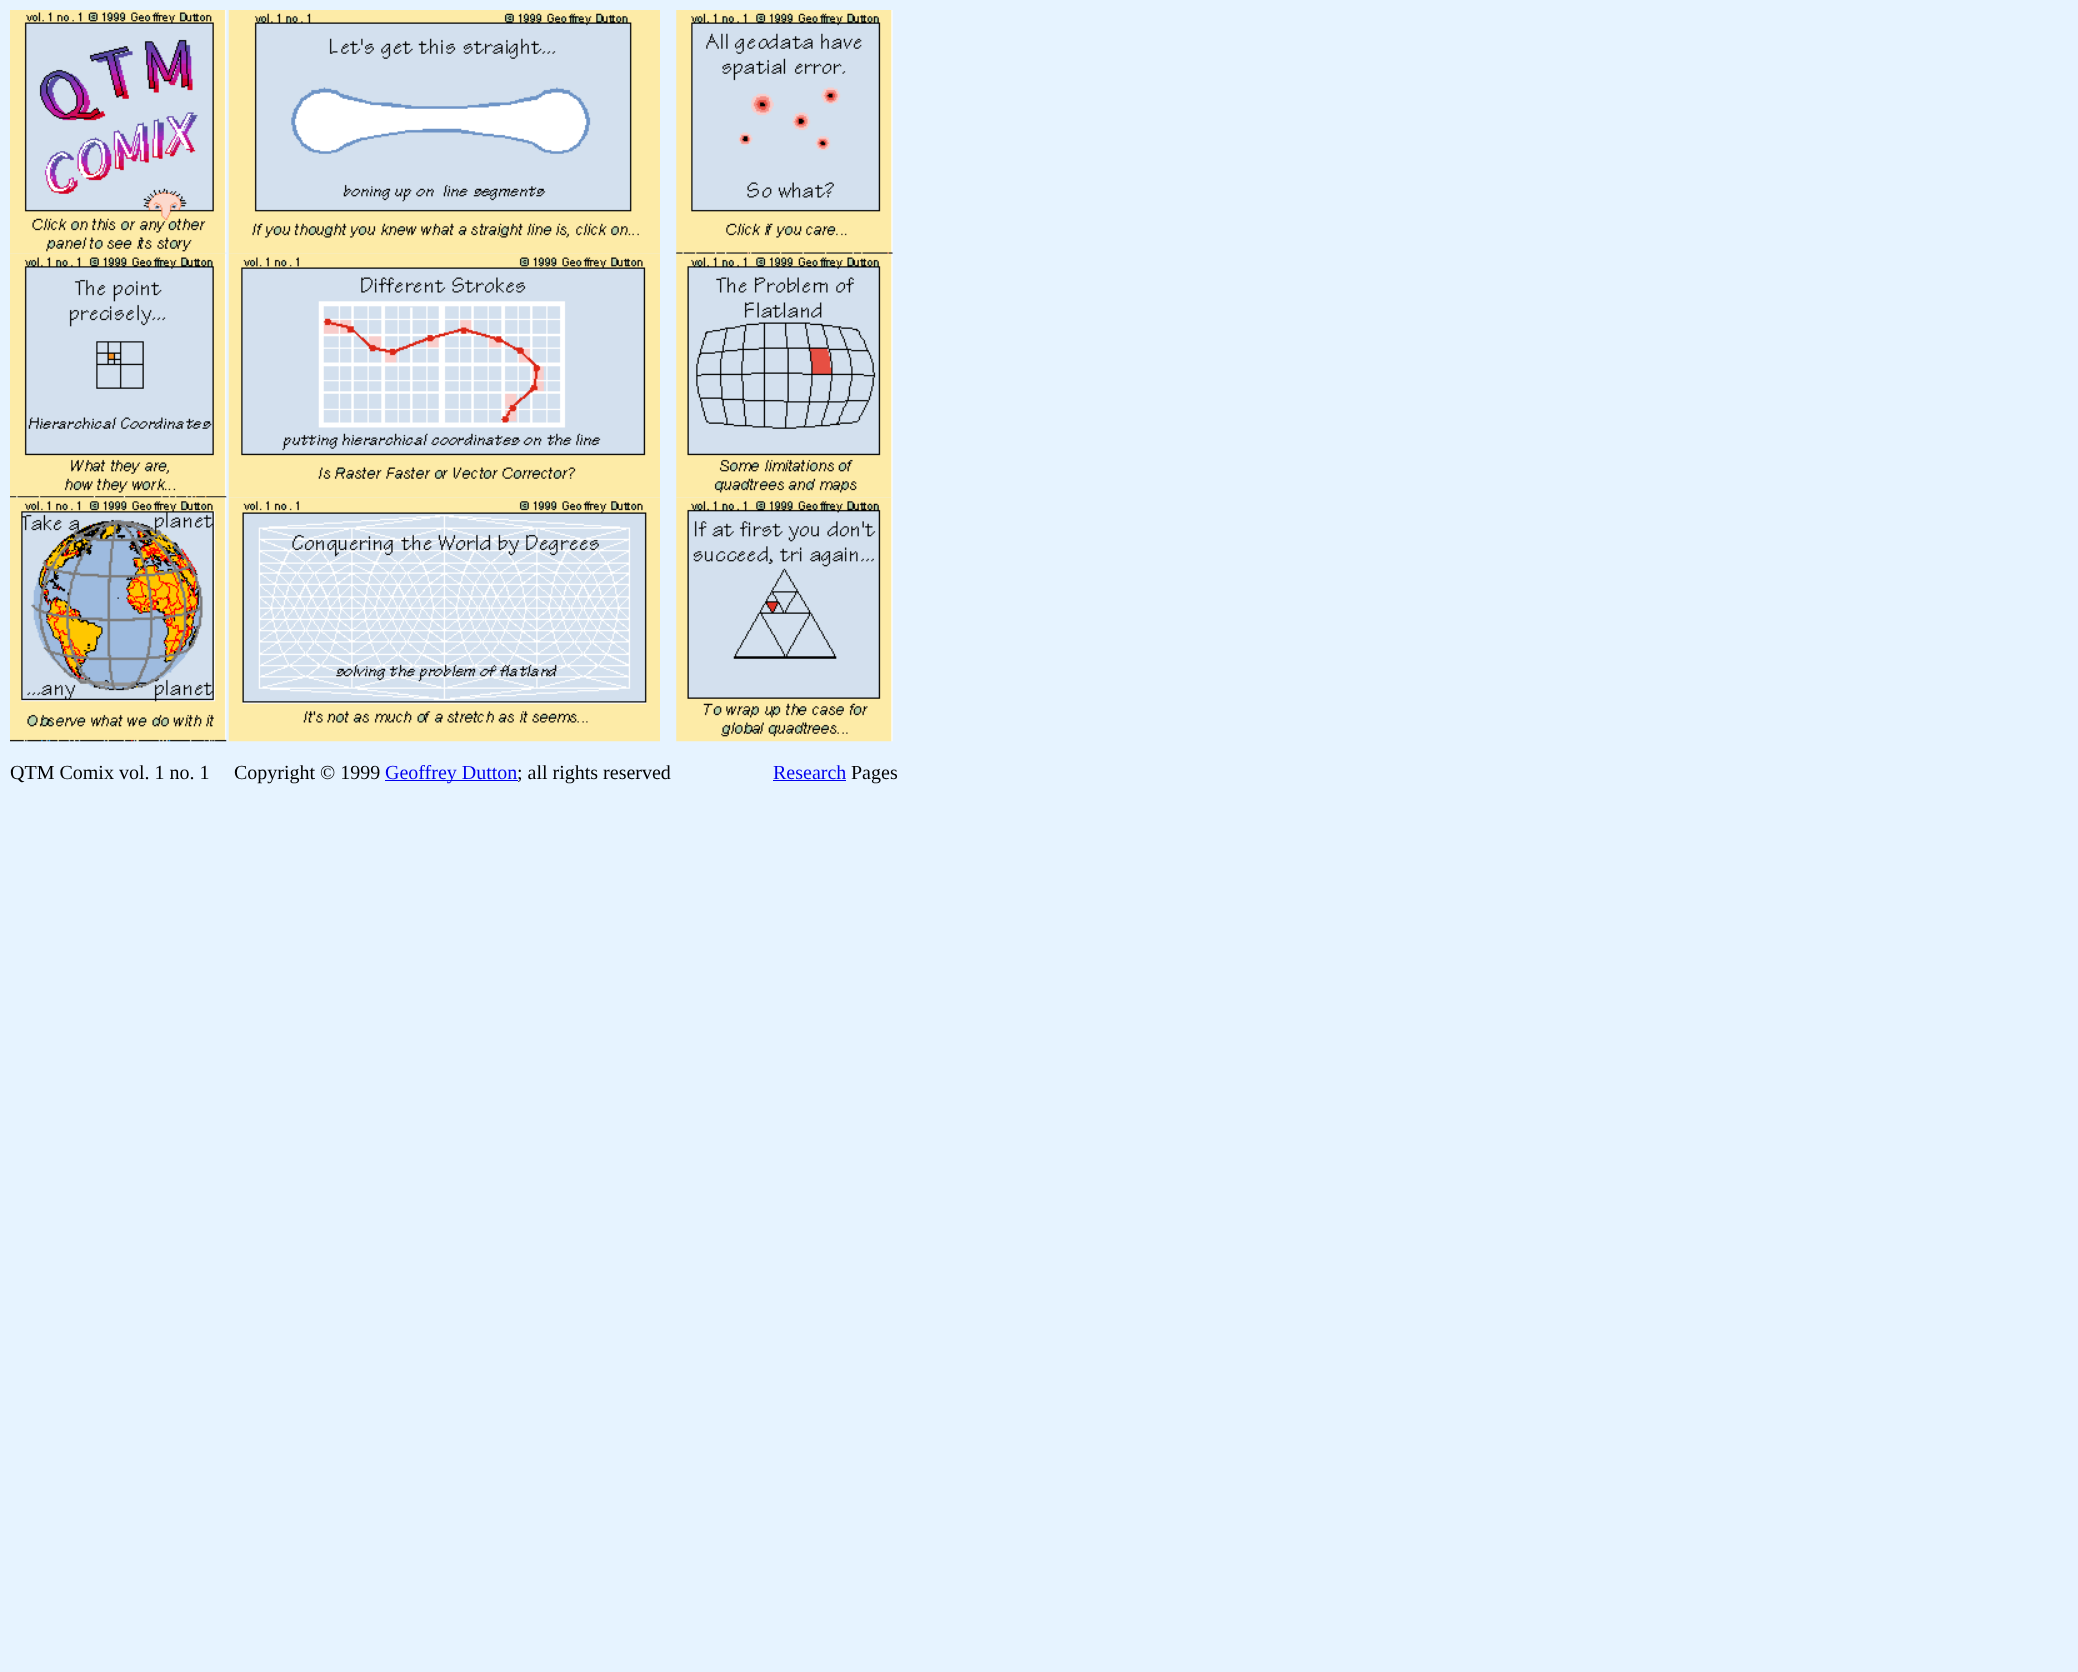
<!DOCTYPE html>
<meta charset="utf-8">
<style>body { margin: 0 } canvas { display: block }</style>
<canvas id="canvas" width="2078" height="1672"></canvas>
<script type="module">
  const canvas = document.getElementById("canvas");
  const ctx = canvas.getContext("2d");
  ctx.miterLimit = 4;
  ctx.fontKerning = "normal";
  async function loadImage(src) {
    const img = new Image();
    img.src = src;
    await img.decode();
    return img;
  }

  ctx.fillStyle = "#e6f3ff";
  ctx.fillRect(0, 0, 2078, 1672);
  ctx.drawImage(await loadImage("img1.png"), 10, 10, 217, 244);
  ctx.drawImage(await loadImage("img2.png"), 228, 10, 432, 244);
  ctx.drawImage(await loadImage("img3.png"), 676, 10, 217, 244);
  ctx.drawImage(await loadImage("img4.png"), 10, 253, 217, 245);
  ctx.drawImage(await loadImage("img5.png"), 228, 253, 432, 245);
  ctx.drawImage(await loadImage("img6.png"), 676, 253, 217, 245);
  ctx.drawImage(await loadImage("img7.png"), 10, 497, 217, 245);
  ctx.font = "20px Liberation Serif";
  ctx.fillStyle = "#000000";
  ctx.fillText("QTM Comix vol. 1 no. 1", 10, 779);
  ctx.drawImage(await loadImage("img8.png"), 228, 497, 432, 245);
  ctx.fillText("Copyright © 1999", 234, 779);
  ctx.fillStyle = "#0000ee";
  ctx.fillRect(385, 780, 133, 1);
  ctx.fillText("Geoffrey Dutton", 385, 779);
  ctx.fillStyle = "#000000";
  ctx.fillText("; all rights reserved", 517, 779);
  ctx.drawImage(await loadImage("img9.png"), 676, 497, 217, 245);
  ctx.fillStyle = "#0000ee";
  ctx.fillText("Research", 773, 779);
  ctx.fillRect(773, 780, 73, 1);
  ctx.fillStyle = "#000000";
  ctx.fillText("Pages", 851, 779);
</script>
